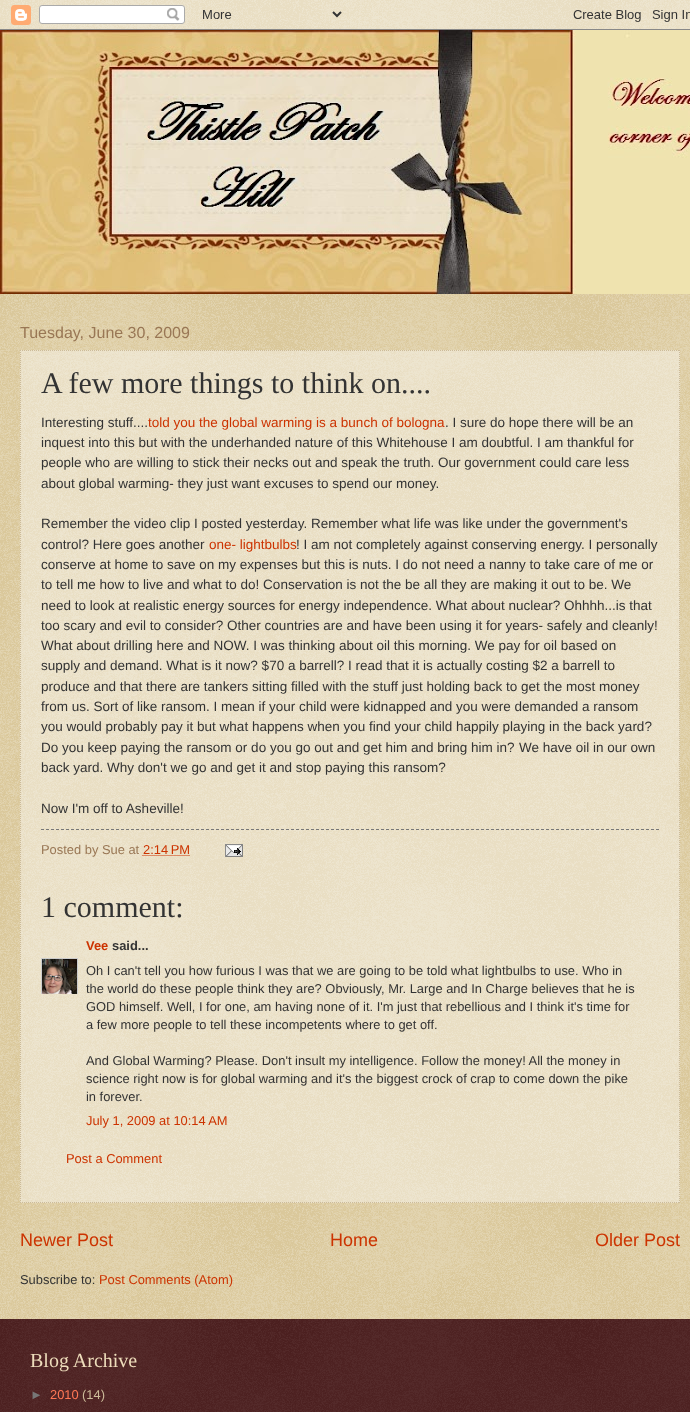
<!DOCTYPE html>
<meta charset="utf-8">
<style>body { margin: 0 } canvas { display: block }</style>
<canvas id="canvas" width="690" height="1412"></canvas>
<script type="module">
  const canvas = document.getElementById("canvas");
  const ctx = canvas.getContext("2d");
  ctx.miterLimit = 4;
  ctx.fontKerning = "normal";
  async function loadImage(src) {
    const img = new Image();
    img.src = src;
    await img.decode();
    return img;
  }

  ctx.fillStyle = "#c0a154";
  ctx.fillRect(0, 0, 690, 1412);
  ctx.drawImage(await loadImage("img1.png"), 0, 0, 690, 1319);
  ctx.drawImage(await loadImage("img2.png"), 0, 0, 690, 30);
  ctx.drawImage(await loadImage("img3.png"), 0, 30, 690, 264);
  ctx.font = "16px Liberation Sans";
  ctx.fillStyle = "#997755";
  ctx.fillText("Tuesday, June 30, 2009", 20, 338);
  ctx.fillStyle = "rgba(255, 255, 255, 0.4)";
  ctx.fillRect(20, 350, 660, 853);
  ctx.beginPath();
  ctx.moveTo(20, 350.5);
  ctx.lineTo(680, 350.5);
  ctx.strokeStyle = "#ccbb99";
  ctx.setLineDash([1, 1]);
  ctx.stroke();
  ctx.beginPath();
  ctx.moveTo(679.5, 350);
  ctx.lineTo(679.5, 1203);
  ctx.stroke();
  ctx.beginPath();
  ctx.moveTo(20, 1202.5);
  ctx.lineTo(680, 1202.5);
  ctx.stroke();
  ctx.beginPath();
  ctx.moveTo(20.5, 350);
  ctx.lineTo(20.5, 1203);
  ctx.stroke();
  ctx.font = "30px Liberation Serif";
  ctx.fillStyle = "#333333";
  ctx.fillText("A few more things to think on....", 41, 393);
  ctx.font = "13.5px Liberation Sans";
  ctx.fillText("Interesting stuff....", 41, 427);
  ctx.fillStyle = "#cc3300";
  ctx.fillText("told you the global warming is a bunch of bologna", 148, 427);
  ctx.fillStyle = "#333333";
  ctx.fillText(". I sure do hope there will be an", 445, 427);
  ctx.fillText("inquest into this but with the underhanded nature of this Whitehouse I am doubtful. I am thankful for", 41, 447);
  ctx.fillText("people who are willing to stick their necks out and speak the truth. Our government could care less", 41, 467);
  ctx.fillText("about global warming- they just want excuses to spend our money.", 41, 488);
  ctx.fillText("Remember the video clip I posted yesterday. Remember what life was like under the government's", 41, 528);
  ctx.fillText("control? Here goes another", 41, 549);
  ctx.fillStyle = "#cc3300";
  ctx.fillText("one- lightbulbs", 209, 549);
  ctx.fillStyle = "#333333";
  ctx.fillText("! I am not completely against conserving energy. I personally", 296, 549);
  ctx.fillText("conserve at home to save on my expenses but this is nuts. I do not need a nanny to take care of me or", 41, 569);
  ctx.fillText("to tell me how to live and what to do! Conservation is not the be all they are making it out to be. We", 41, 589);
  ctx.fillText("need to look at realistic energy sources for energy independence. What about nuclear? Ohhhh...is that", 41, 610);
  ctx.fillText("too scary and evil to consider? Other countries are and have been using it for years- safely and cleanly!", 41, 630);
  ctx.fillText("What about drilling here and NOW. I was thinking about oil this morning. We pay for oil based on", 41, 650);
  ctx.fillText("supply and demand. What is it now? $70 a barrell? I read that it is actually costing $2 a barrell to", 41, 670);
  ctx.fillText("produce and that there are tankers sitting filled with the stuff just holding back to get the most money", 41, 691);
  ctx.fillText("from us. Sort of like ransom. I mean if your child were kidnapped and you were demanded a ransom", 41, 711);
  ctx.fillText("you would probably pay it but what happens when you find your child happily playing in the back yard?", 41, 731);
  ctx.fillText("Do you keep paying the ransom or do you go out and get him and bring him in?", 41, 752);
  ctx.fillText("We have oil in our own", 519, 752);
  ctx.fillText("back yard. Why don't we go and get it and stop paying this ransom?", 41, 772);
  ctx.fillText("Now I'm off to Asheville!", 41, 813);
  ctx.beginPath();
  ctx.moveTo(41, 829.5);
  ctx.lineTo(659, 829.5);
  ctx.strokeStyle = "#777777";
  ctx.setLineDash([3, 2]);
  ctx.stroke();
  ctx.font = "12.9px Liberation Sans";
  ctx.fillStyle = "#997755";
  ctx.fillText("Posted by Sue at", 41, 854);
  ctx.fillStyle = "#cc3300";
  ctx.fillText("2:14 PM", 143, 854);
  ctx.beginPath();
  ctx.moveTo(142.5, 855.5);
  ctx.lineTo(189.5, 855.5);
  ctx.strokeStyle = "#cc3300";
  ctx.setLineDash([1, 1]);
  ctx.stroke();
  ctx.drawImage(await loadImage("img4.png"), 225, 844, 18, 13);
  ctx.font = "30px Liberation Serif";
  ctx.fillStyle = "#333333";
  ctx.fillText("1 comment:", 41, 917);
  ctx.font = "bold 12.9px Liberation Sans";
  ctx.fillStyle = "#cc3300";
  ctx.fillText("Vee", 86, 950);
  ctx.fillStyle = "#333333";
  ctx.fillText("said...", 112, 950);
  ctx.save();
  ctx.beginPath();
  ctx.rect(41, 958, 37, 36);
  ctx.clip();
  ctx.strokeStyle = "#cccccc";
  ctx.setLineDash([]);
  ctx.strokeRect(41.5, 958.5, 36, 36);
  ctx.restore();
  ctx.drawImage(await loadImage("img5.png"), 42, 959, 35, 35);
  ctx.font = "12.9px Liberation Sans";
  ctx.fillText("Oh I can't tell you how furious I was that we are going to be told what lightbulbs to use. Who in", 86, 975);
  ctx.fillText("the world do these people think they are? Obviously, Mr. Large and In Charge believes that he is", 86, 993);
  ctx.fillText("GOD himself. Well, I for one, am having none of it. I'm just that rebellious and I think it's time for", 86, 1011);
  ctx.fillText("a few more people to tell these incompetents where to get off.", 86, 1029);
  ctx.fillText("And Global Warming? Please. Don't insult my intelligence. Follow the money! All the money in", 86, 1065);
  ctx.fillText("science right now is for global warming and it's the biggest crock of crap to come down the pike", 86, 1083);
  ctx.fillText("in forever.", 86, 1101);
  ctx.fillStyle = "#cc3300";
  ctx.fillText("July 1, 2009 at 10:14 AM", 86, 1125);
  ctx.fillText("Post a Comment", 66, 1163);
  ctx.font = "18px Liberation Sans";
  ctx.fillText("Newer Post", 20, 1246);
  ctx.fillText("Home", 330, 1246);
  ctx.fillText("Older Post", 595, 1246);
  ctx.font = "12.9px Liberation Sans";
  ctx.fillStyle = "#333333";
  ctx.fillText("Subscribe to:", 20, 1284);
  ctx.fillStyle = "#cc3300";
  ctx.fillText("Post Comments (Atom)", 99, 1284);
  ctx.fillStyle = "#330000";
  ctx.fillRect(0, 1319, 690, 93);
  ctx.drawImage(await loadImage("img6.png"), 0, 1319, 690, 93);
  ctx.font = "20px Liberation Serif";
  ctx.fillStyle = "#eeddbb";
  ctx.fillText("Blog Archive", 30, 1367);
  ctx.font = "12.9px Liberation Sans";
  ctx.fillStyle = "#777777";
  ctx.fillText("►", 30, 1399);
  ctx.fillStyle = "#ff7755";
  ctx.fillText("2010", 50, 1399);
  ctx.fillStyle = "#ccbb99";
  ctx.fillText("(14)", 82, 1399);
</script>
